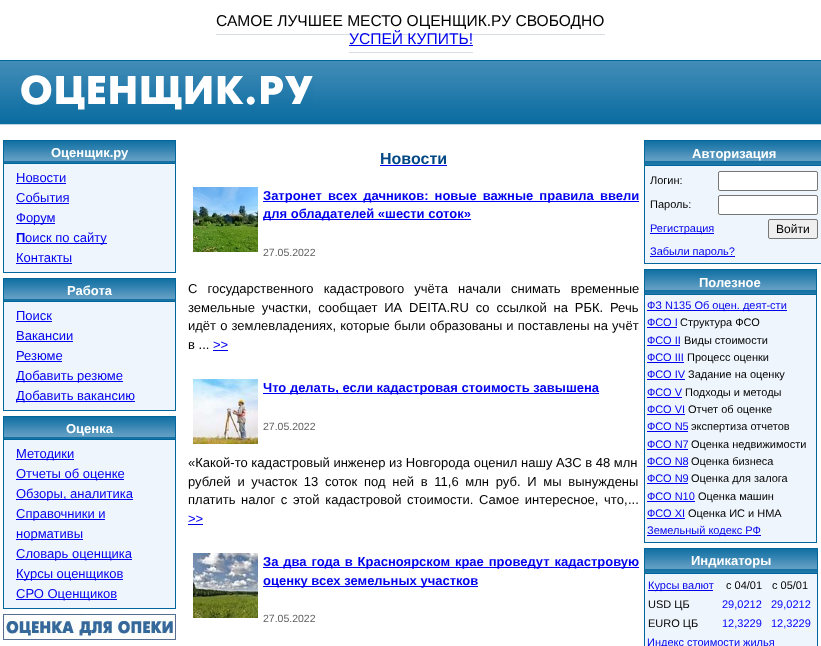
<!DOCTYPE html>
<meta charset="utf-8">
<style>body { margin: 0 } canvas { display: block }</style>
<canvas id="canvas" width="821" height="646"></canvas>
<script type="module">
  const canvas = document.getElementById("canvas");
  const ctx = canvas.getContext("2d");
  ctx.miterLimit = 4;
  ctx.fontKerning = "normal";
  async function loadImage(src) {
    const img = new Image();
    img.src = src;
    await img.decode();
    return img;
  }

  ctx.fillStyle = "#ffffff";
  ctx.fillRect(0, 0, 821, 646);
  ctx.font = "15.6px Liberation Sans";
  ctx.fillStyle = "#000000";
  ctx.fillText("САМОЕ ЛУЧШЕЕ МЕСТО ОЦЕНЩИК.РУ СВОБОДНО", 216, 26);
  ctx.fillStyle = "#d8dee4";
  ctx.fillRect(216, 34, 389, 1);
  ctx.fillStyle = "#0000ee";
  ctx.fillText("УСПЕЙ КУПИТЬ!", 349, 44);
  ctx.fillStyle = "#d8dee4";
  ctx.fillRect(349, 52, 124, 1);
  ctx.fillStyle = "#0000ee";
  ctx.fillRect(349, 45, 124, 1);
  ctx.drawImage(await loadImage("img1.png"), 0, 60, 20, 65);
  ctx.drawImage(await loadImage("img2.png"), 20, 60, 293, 65);
  ctx.drawImage(await loadImage("img3.png"), 21, 75, 292, 35);
  ctx.drawImage(await loadImage("img4.png"), 313, 60, 488, 65);
  ctx.drawImage(await loadImage("img1.png"), 801, 60, 20, 65);
  ctx.fillStyle = "#00669c";
  ctx.fillRect(3, 140, 173, 133);
  ctx.drawImage(await loadImage("img5.png"), 4, 141, 171, 22);
  ctx.font = "bold 13px Liberation Sans";
  ctx.fillStyle = "#ffffff";
  ctx.fillText("Оценщик.ру", 51, 157);
  ctx.fillStyle = "#eff5fc";
  ctx.fillRect(4, 164, 171, 108);
  ctx.font = "13px Liberation Sans";
  ctx.fillStyle = "#0000ee";
  ctx.fillText("Новости", 16, 182);
  ctx.fillRect(16, 183, 50, 1);
  ctx.fillText("События", 16, 202);
  ctx.fillRect(16, 203, 53, 1);
  ctx.fillRect(16, 223, 39, 1);
  ctx.fillText("Форум", 16, 222);
  ctx.font = "bold 13px Liberation Sans";
  ctx.fillText("П", 16, 242);
  ctx.fillRect(16, 243, 91, 1);
  ctx.font = "13px Liberation Sans";
  ctx.fillText("оиск по сайту", 25, 242);
  ctx.fillText("Контакты", 16, 262);
  ctx.fillRect(16, 263, 56, 1);
  ctx.fillStyle = "#00669c";
  ctx.fillRect(3, 278, 173, 133);
  ctx.drawImage(await loadImage("img5.png"), 4, 279, 171, 22);
  ctx.font = "bold 13px Liberation Sans";
  ctx.fillStyle = "#ffffff";
  ctx.fillText("Работа", 67, 295);
  ctx.fillStyle = "#eff5fc";
  ctx.fillRect(4, 302, 171, 108);
  ctx.font = "13px Liberation Sans";
  ctx.fillStyle = "#0000ee";
  ctx.fillText("Поиск", 16, 320);
  ctx.fillRect(16, 321, 36, 1);
  ctx.fillText("Вакансии", 16, 340);
  ctx.fillRect(16, 341, 57, 1);
  ctx.fillText("Резюме", 16, 360);
  ctx.fillRect(16, 361, 46, 1);
  ctx.fillRect(16, 381, 107, 1);
  ctx.fillText("Добавить резюме", 16, 380);
  ctx.fillRect(16, 401, 119, 1);
  ctx.fillText("Добавить вакансию", 16, 400);
  ctx.fillStyle = "#00669c";
  ctx.fillRect(3, 416, 173, 193);
  ctx.drawImage(await loadImage("img5.png"), 4, 417, 171, 22);
  ctx.font = "bold 13px Liberation Sans";
  ctx.fillStyle = "#ffffff";
  ctx.fillText("Оценка", 66, 433);
  ctx.fillStyle = "#eff5fc";
  ctx.fillRect(4, 440, 171, 168);
  ctx.fillStyle = "#0000ee";
  ctx.fillRect(16, 459, 58, 1);
  ctx.font = "13px Liberation Sans";
  ctx.fillText("Методики", 16, 458);
  ctx.fillRect(16, 479, 108, 1);
  ctx.fillText("Отчеты об оценке", 16, 478);
  ctx.fillRect(16, 499, 117, 1);
  ctx.fillText("Обзоры, аналитика", 16, 498);
  ctx.fillRect(16, 519, 89, 1);
  ctx.fillText("Справочники и", 16, 518);
  ctx.fillRect(16, 539, 67, 1);
  ctx.fillText("нормативы", 16, 538);
  ctx.fillRect(16, 559, 116, 1);
  ctx.fillText("Словарь оценщика", 16, 558);
  ctx.fillRect(16, 579, 107, 1);
  ctx.fillText("Курсы оценщиков", 16, 578);
  ctx.fillRect(16, 599, 101, 1);
  ctx.fillText("СРО Оценщиков", 16, 598);
  ctx.drawImage(await loadImage("img6.png"), 3, 614, 173, 26);
  ctx.font = "bold 16px Liberation Sans";
  ctx.fillStyle = "#014783";
  ctx.fillText("Новости", 380, 164);
  ctx.fillStyle = "#0000ee";
  ctx.fillRect(380, 165, 67, 1);
  ctx.drawImage(await loadImage("img7.png"), 193, 187, 65, 65);
  ctx.fillRect(263, 201, 376, 1);
  ctx.wordSpacing = "2.5px";
  ctx.font = "bold 13px Liberation Sans";
  ctx.fillText("Затронет всех дачников: новые важные правила ввели", 263, 200);
  ctx.fillRect(263, 219, 208, 1);
  ctx.wordSpacing = "0px";
  ctx.fillText("для обладателей «шести соток»", 263, 218);
  ctx.font = "10.5px Liberation Sans";
  ctx.fillStyle = "#606060";
  ctx.fillText("27.05.2022", 263, 256);
  ctx.wordSpacing = "6.5px";
  ctx.font = "13px Liberation Sans";
  ctx.fillStyle = "#000000";
  ctx.fillText("С государственного кадастрового учёта начали снимать временные", 188, 293);
  ctx.wordSpacing = "3.25px";
  ctx.fillText("земельные участки, сообщает ИА DEITA.RU со ссылкой на РБК.", 188, 312);
  ctx.wordSpacing = "0px";
  ctx.fillText("Речь", 610, 312);
  ctx.wordSpacing = "0.5px";
  ctx.fillText("идёт о землевладениях, которые были образованы и поставлены на учёт", 188, 330);
  ctx.wordSpacing = "0px";
  ctx.fillText("в ...", 188, 349);
  ctx.fillStyle = "#0000ee";
  ctx.fillText(">>", 213, 349);
  ctx.fillRect(213, 350, 15, 1);
  ctx.drawImage(await loadImage("img8.png"), 193, 379, 65, 65);
  ctx.fillRect(263, 393, 336, 1);
  ctx.font = "bold 13px Liberation Sans";
  ctx.fillText("Что делать, если кадастровая стоимость завышена", 263, 392);
  ctx.font = "10.5px Liberation Sans";
  ctx.fillStyle = "#606060";
  ctx.fillText("27.05.2022", 263, 430);
  ctx.font = "13px Liberation Sans";
  ctx.fillStyle = "#000000";
  ctx.fillText("«Какой-то кадастровый инженер из Новгорода оценил нашу АЗС в 48 млн", 188, 467);
  ctx.wordSpacing = "3.1px";
  ctx.fillText("рублей и участок 13 соток под ней в 11,6 млн руб. И мы вынуждены", 188, 486);
  ctx.wordSpacing = "2px";
  ctx.fillText("платить налог с этой кадастровой стоимости.", 188, 504);
  ctx.fillText("Самое интересное, что,", 479, 504);
  ctx.wordSpacing = "0px";
  ctx.fillText("...", 628, 504);
  ctx.fillStyle = "#0000ee";
  ctx.fillText(">>", 188, 523);
  ctx.fillRect(188, 524, 15, 1);
  ctx.drawImage(await loadImage("img9.png"), 193, 553, 65, 65);
  ctx.fillRect(263, 567, 376, 1);
  ctx.wordSpacing = "1.25px";
  ctx.font = "bold 13px Liberation Sans";
  ctx.fillText("За два года в Красноярском крае проведут кадастровую", 263, 566);
  ctx.fillRect(263, 586, 215, 1);
  ctx.wordSpacing = "0px";
  ctx.fillText("оценку всех земельных участков", 263, 585);
  ctx.font = "10.5px Liberation Sans";
  ctx.fillStyle = "#606060";
  ctx.fillText("27.05.2022", 263, 622);
  ctx.fillStyle = "#00669c";
  ctx.fillRect(644, 140, 177, 124);
  ctx.drawImage(await loadImage("img10.png"), 645, 141, 176, 24);
  ctx.font = "bold 13px Liberation Sans";
  ctx.fillStyle = "#ffffff";
  ctx.fillText("Авторизация", 692, 158);
  ctx.fillStyle = "#eff5fc";
  ctx.fillRect(645, 166, 176, 97);
  ctx.font = "11px Liberation Sans";
  ctx.fillStyle = "#000000";
  ctx.fillText("Логин:", 650, 184);
  ctx.fillStyle = "#ffffff";
  ctx.beginPath();
  ctx.roundRect(718.5, 171.5, 99, 19, 1.5);
  ctx.fill();
  ctx.strokeStyle = "#767676";
  ctx.stroke();
  ctx.fillStyle = "#000000";
  ctx.fillText("Пароль:", 650, 208);
  ctx.fillStyle = "#ffffff";
  ctx.beginPath();
  ctx.roundRect(718.5, 195.5, 99, 19, 1.5);
  ctx.fill();
  ctx.stroke();
  ctx.fillStyle = "#0000ee";
  ctx.fillRect(650, 233, 64, 1);
  ctx.fillText("Регистрация", 650, 232);
  ctx.fillStyle = "#efefef";
  ctx.beginPath();
  ctx.roundRect(768.5, 219.5, 49, 19, 1.5);
  ctx.fill();
  ctx.stroke();
  ctx.font = "12px Liberation Sans";
  ctx.fillStyle = "#000000";
  ctx.fillText("Войти", 776, 233);
  ctx.fillStyle = "#0000ee";
  ctx.fillRect(650, 256, 85, 1);
  ctx.font = "11px Liberation Sans";
  ctx.fillText("Забыли пароль?", 650, 255);
  ctx.fillStyle = "#00669c";
  ctx.fillRect(644, 269, 173, 274);
  ctx.drawImage(await loadImage("img11.png"), 645, 270, 171, 24);
  ctx.font = "bold 13px Liberation Sans";
  ctx.fillStyle = "#ffffff";
  ctx.fillText("Полезное", 699, 287);
  ctx.fillStyle = "#eff5fc";
  ctx.fillRect(645, 295, 171, 247);
  ctx.fillStyle = "#0000ee";
  ctx.fillRect(647, 310, 140, 1);
  ctx.font = "11px Liberation Sans";
  ctx.fillText("ФЗ N135 Об оцен. деят-сти", 647, 309);
  ctx.fillText("ФСО I", 647, 326);
  ctx.fillRect(647, 327, 30, 1);
  ctx.fillStyle = "#000000";
  ctx.fillText("Структура ФСО", 680, 326);
  ctx.fillStyle = "#0000ee";
  ctx.fillText("ФСО II", 647, 344);
  ctx.fillRect(647, 345, 33, 1);
  ctx.fillStyle = "#000000";
  ctx.fillText("Виды стоимости", 684, 344);
  ctx.fillStyle = "#0000ee";
  ctx.fillText("ФСО III", 647, 361);
  ctx.fillRect(647, 362, 37, 1);
  ctx.fillStyle = "#000000";
  ctx.fillText("Процесс оценки", 687, 361);
  ctx.fillStyle = "#0000ee";
  ctx.fillText("ФСО IV", 647, 378);
  ctx.fillRect(647, 379, 38, 1);
  ctx.fillStyle = "#000000";
  ctx.fillText("Задание на оценку", 688, 378);
  ctx.fillStyle = "#0000ee";
  ctx.fillText("ФСО V", 647, 396);
  ctx.fillRect(647, 397, 35, 1);
  ctx.fillStyle = "#000000";
  ctx.fillText("Подходы и методы", 685, 396);
  ctx.fillStyle = "#0000ee";
  ctx.fillText("ФСО VI", 647, 413);
  ctx.fillRect(647, 414, 38, 1);
  ctx.fillStyle = "#000000";
  ctx.fillText("Отчет об оценке", 688, 413);
  ctx.fillStyle = "#0000ee";
  ctx.fillText("ФСО N5", 647, 430);
  ctx.fillStyle = "#000000";
  ctx.fillText("экспертиза отчетов", 691, 430);
  ctx.fillStyle = "#0000ee";
  ctx.fillRect(647, 431, 41, 1);
  ctx.fillText("ФСО N7", 647, 448);
  ctx.fillRect(647, 449, 41, 1);
  ctx.fillStyle = "#000000";
  ctx.fillText("Оценка недвижимости", 691, 448);
  ctx.fillStyle = "#0000ee";
  ctx.fillText("ФСО N8", 647, 465);
  ctx.fillRect(647, 466, 41, 1);
  ctx.fillStyle = "#000000";
  ctx.fillText("Оценка бизнеса", 691, 465);
  ctx.fillStyle = "#0000ee";
  ctx.fillText("ФСО N9", 647, 482);
  ctx.fillRect(647, 483, 41, 1);
  ctx.fillStyle = "#000000";
  ctx.fillText("Оценка для залога", 691, 482);
  ctx.fillStyle = "#0000ee";
  ctx.fillText("ФСО N10", 647, 500);
  ctx.fillRect(647, 501, 48, 1);
  ctx.fillStyle = "#000000";
  ctx.fillText("Оценка машин", 698, 500);
  ctx.fillStyle = "#0000ee";
  ctx.fillText("ФСО XI", 647, 517);
  ctx.fillRect(647, 518, 38, 1);
  ctx.fillStyle = "#000000";
  ctx.fillText("Оценка ИС и НМА", 688, 517);
  ctx.fillStyle = "#0000ee";
  ctx.fillRect(647, 535, 114, 1);
  ctx.fillText("Земельный кодекс РФ", 647, 534);
  ctx.fillStyle = "#00669c";
  ctx.fillRect(644, 548, 174, 98);
  ctx.drawImage(await loadImage("img12.png"), 645, 549, 172, 24);
  ctx.font = "bold 13px Liberation Sans";
  ctx.fillStyle = "#ffffff";
  ctx.fillText("Индикаторы", 691, 565);
  ctx.fillStyle = "#eff5fc";
  ctx.fillRect(645, 574, 172, 72);
  ctx.fillStyle = "#0000ee";
  ctx.fillRect(648, 590, 65, 1);
  ctx.font = "11px Liberation Sans";
  ctx.fillText("Курсы валют", 648, 589);
  ctx.fillStyle = "#000000";
  ctx.fillText("с 04/01", 726, 589);
  ctx.fillText("с 05/01", 772, 589);
  ctx.fillText("USD ЦБ", 648, 608);
  ctx.fillStyle = "#0000ff";
  ctx.fillText("29,0212", 722, 608);
  ctx.fillText("29,0212", 771, 608);
  ctx.fillStyle = "#000000";
  ctx.fillText("EURO ЦБ", 648, 627);
  ctx.fillStyle = "#0000ff";
  ctx.fillText("12,3229", 722, 627);
  ctx.fillText("12,3229", 771, 627);
  ctx.fillStyle = "#0000ee";
  ctx.fillText("Индекс стоимости жилья", 647, 646);
</script>
